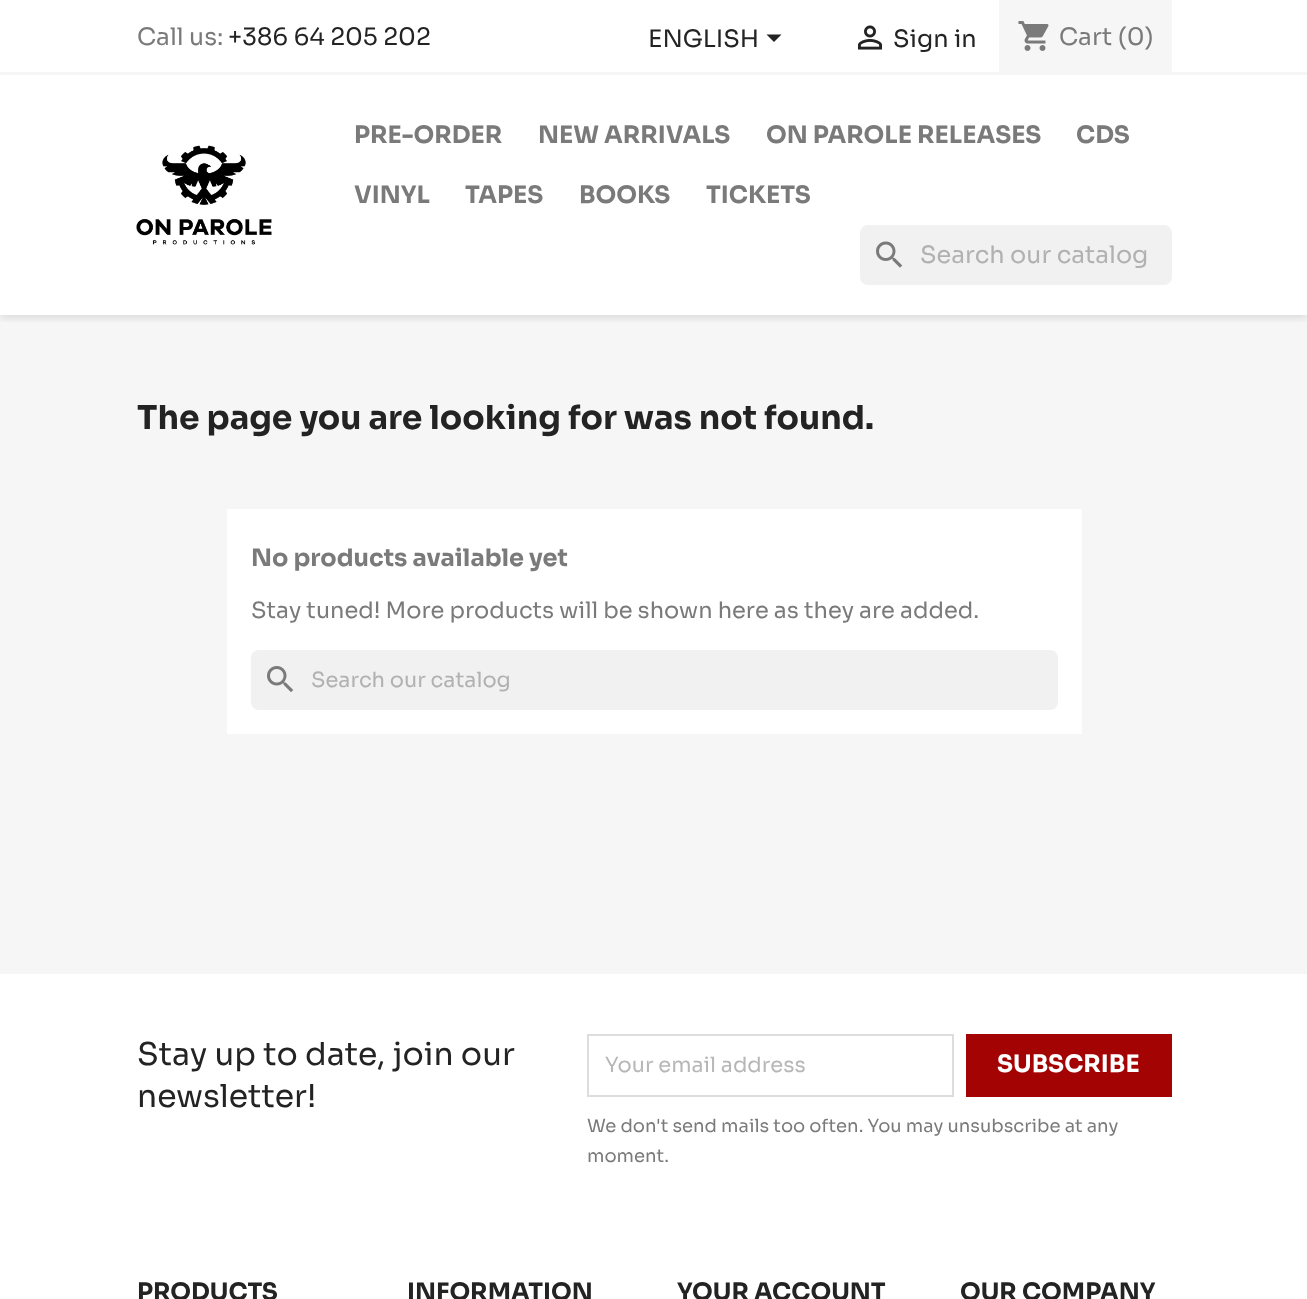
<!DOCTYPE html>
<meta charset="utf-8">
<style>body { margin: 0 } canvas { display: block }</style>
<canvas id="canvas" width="1307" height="1299"></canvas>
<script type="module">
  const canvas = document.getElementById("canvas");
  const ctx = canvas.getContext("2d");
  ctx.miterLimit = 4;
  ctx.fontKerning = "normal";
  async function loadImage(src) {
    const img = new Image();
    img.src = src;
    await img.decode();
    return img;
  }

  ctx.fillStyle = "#ffffff";
  ctx.fillRect(0, 0, 1307, 1299);
  ctx.fillStyle = "#f6f6f6";
  ctx.fillRect(0, 315, 1307, 659);
  ctx.save();
  ctx.beginPath();
  ctx.rect(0, 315, 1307, 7);
  ctx.clip();
  ctx.fillStyle = "rgba(0, 0, 0, 0.11)";
  ctx.filter = "blur(4px)";
  ctx.beginPath();
  ctx.rect(0, 3, 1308, 315);
  ctx.fill();
  ctx.filter = "none";
  ctx.restore();
  ctx.fillRect(0, 72, 1307, 3);
  ctx.font = "24px Sora";
  ctx.fillStyle = "#7a7a7a";
  ctx.fillText("Call us:", 137, 45);
  ctx.fillStyle = "#232323";
  ctx.fillText("+386 64 205 202", 228, 45);
  ctx.fillText("ENGLISH", 648, 47);
  ctx.beginPath();
  ctx.moveTo(766.5, 34.5);
  ctx.lineTo(781.5, 34.5);
  ctx.lineTo(774, 42);
  ctx.closePath();
  ctx.fill();
  ctx.drawImage(await loadImage("img1.png"), 857, 25, 26, 25);
  ctx.fillText("Sign in", 893, 47);
  ctx.fillStyle = "#f6f6f6";
  ctx.fillRect(999, 0, 173, 72);
  ctx.drawImage(await loadImage("img2.png"), 1018, 21, 31, 30);
  ctx.fillStyle = "#7a7a7a";
  ctx.fillText("Cart (0)", 1059, 45);
  ctx.drawImage(await loadImage("img3.png"), 136, 145, 136, 100);
  ctx.font = "bold 24px Sora";
  ctx.fillText("PRE-ORDER", 354, 143);
  ctx.fillText("NEW ARRIVALS", 538, 143);
  ctx.fillText("ON PAROLE RELEASES", 766, 143);
  ctx.fillText("CDS", 1076, 143);
  ctx.fillText("VINYL", 354, 203);
  ctx.fillText("TAPES", 465, 203);
  ctx.fillText("BOOKS", 579, 203);
  ctx.fillText("TICKETS", 706, 203);
  ctx.fillStyle = "#f1f1f1";
  ctx.beginPath();
  ctx.roundRect(860, 225, 312, 60, 8);
  ctx.fill();
  ctx.drawImage(await loadImage("img4.png"), 876, 241, 27, 27);
  ctx.font = "24px Sora";
  ctx.fillStyle = "#b1b1b1";
  ctx.fillText("Search our catalog", 920, 263);
  ctx.font = "bold 33px Sora";
  ctx.fillStyle = "#232323";
  ctx.fillText("The page you are looking for was not found.", 137, 429);
  ctx.fillStyle = "#ffffff";
  ctx.fillRect(227, 509, 855, 225);
  ctx.font = "bold 24px Sora";
  ctx.fillStyle = "#7a7a7a";
  ctx.fillText("No products available yet", 251, 566);
  ctx.font = "22.5px Sora";
  ctx.fillText("Stay tuned! More products will be shown here as they are added.", 251, 618);
  ctx.fillStyle = "#f1f1f1";
  ctx.beginPath();
  ctx.roundRect(251, 650, 807, 60, 8);
  ctx.fill();
  ctx.drawImage(await loadImage("img5.png"), 267, 666, 27, 26);
  ctx.font = "21px Sora";
  ctx.fillStyle = "#b1b1b1";
  ctx.fillText("Search our catalog", 311, 687);
  ctx.font = "31.5px Sora";
  ctx.fillStyle = "#232323";
  ctx.fillText("Stay up to date, join our", 137, 1065);
  ctx.fillText("newsletter!", 137, 1107);
  ctx.strokeStyle = "#dddddd";
  ctx.lineWidth = 2;
  ctx.strokeRect(588, 1035, 365, 61);
  ctx.font = "21px Sora";
  ctx.fillStyle = "#b7b7b7";
  ctx.fillText("Your email address", 605, 1072);
  ctx.fillStyle = "#a40303";
  ctx.fillRect(966, 1034, 206, 63);
  ctx.font = "bold 24px Sora";
  ctx.fillStyle = "#ffffff";
  ctx.fillText("SUBSCRIBE", 997, 1072);
  ctx.font = "18px Sora";
  ctx.fillStyle = "#7a7a7a";
  ctx.fillText("We don't send mails too often. You may unsubscribe at any", 587, 1132);
  ctx.fillText("moment.", 587, 1162);
  ctx.font = "bold 24px Sora";
  ctx.fillStyle = "#232323";
  ctx.fillText("PRODUCTS", 137, 1300);
  ctx.fillText("INFORMATION", 407, 1300);
  ctx.fillText("YOUR ACCOUNT", 677, 1300);
  ctx.fillText("OUR COMPANY", 960, 1300);
</script>
